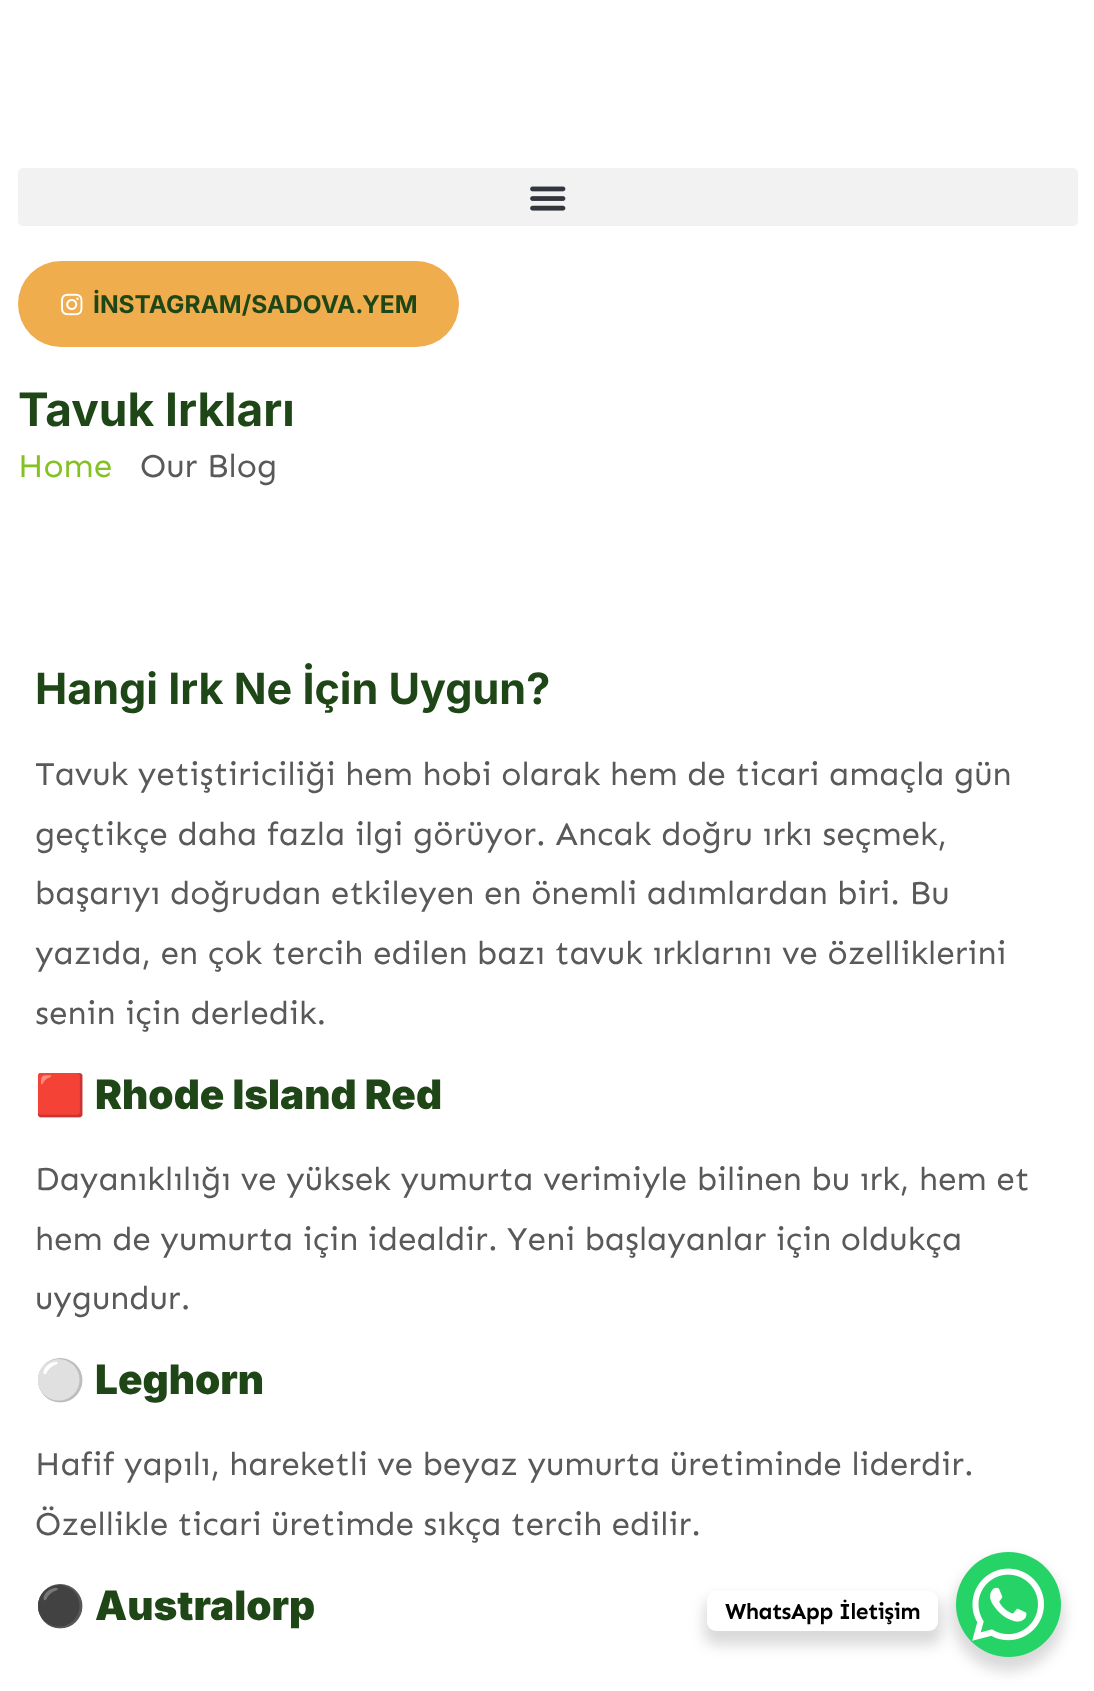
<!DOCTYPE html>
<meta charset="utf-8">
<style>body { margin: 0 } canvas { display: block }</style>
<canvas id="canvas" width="1094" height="1691"></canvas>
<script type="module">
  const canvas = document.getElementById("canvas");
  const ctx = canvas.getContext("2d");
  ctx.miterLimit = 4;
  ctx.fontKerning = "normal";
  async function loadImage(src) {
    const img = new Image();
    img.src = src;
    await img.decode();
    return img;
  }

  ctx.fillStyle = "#ffffff";
  ctx.fillRect(0, 0, 1094, 1691);
  ctx.fillStyle = "#f2f2f2";
  ctx.beginPath();
  ctx.roundRect(18, 168, 1060, 58, 5);
  ctx.fill();
  ctx.drawImage(await loadImage("img1.png"), 530, 186, 36, 25);
  ctx.fillStyle = "#f0ad4e";
  ctx.beginPath();
  ctx.roundRect(18, 261, 441, 86, 43);
  ctx.fill();
  ctx.drawImage(await loadImage("img2.png"), 61, 293, 22, 23);
  ctx.font = "bold 24.5px Inter";
  ctx.fillStyle = "#1e4616";
  ctx.fillText("İNSTAGRAM/SADOVA.YEM", 93, 313);
  ctx.font = "bold 46px Inter";
  ctx.fillText("Tavuk Irkları", 18, 426);
  ctx.font = "33.25px Sen";
  ctx.fillStyle = "#84c224";
  ctx.fillText("Home", 18, 477);
  ctx.fillStyle = "#595959";
  ctx.fillText("Our Blog", 140, 477);
  ctx.font = "bold 43.1px Inter";
  ctx.fillStyle = "#1e4616";
  ctx.fillText("Hangi Irk Ne İçin Uygun?", 35, 704);
  ctx.wordSpacing = "-0.25px";
  ctx.font = "33.25px Sen";
  ctx.fillStyle = "#595959";
  ctx.fillText("Tavuk yetiştiriciliği hem hobi olarak hem de ticari amaçla gün", 35, 785);
  ctx.wordSpacing = "0px";
  ctx.fillText("geçtikçe daha fazla ilgi görüyor. Ancak doğru ırkı seçmek,", 35, 845);
  ctx.wordSpacing = "-0.1px";
  ctx.fillText("başarıyı doğrudan etkileyen en önemli adımlardan biri. Bu", 35, 904);
  ctx.fillText("yazıda, en çok tercih edilen bazı tavuk ırklarını ve özelliklerini", 35, 964);
  ctx.wordSpacing = "0px";
  ctx.fillText("senin için derledik.", 35, 1024);
  ctx.font = "bold 40.5px Noto Color Emoji";
  ctx.fillStyle = "#1e4616";
  ctx.fillText("🟥", 35, 1109);
  ctx.font = "900 40.5px Inter";
  ctx.fillText("Rhode Island Red", 95, 1109);
  ctx.font = "33.25px Sen";
  ctx.fillStyle = "#595959";
  ctx.fillText("Dayanıklılığı ve yüksek yumurta verimiyle bilinen bu ırk, hem et", 35, 1190);
  ctx.wordSpacing = "-0.25px";
  ctx.fillText("hem de yumurta için idealdir. Yeni başlayanlar için oldukça", 35, 1250);
  ctx.wordSpacing = "0px";
  ctx.fillText("uygundur.", 35, 1309);
  ctx.font = "bold 40.5px Noto Color Emoji";
  ctx.fillStyle = "#1e4616";
  ctx.fillText("⚪", 35, 1394);
  ctx.font = "900 40.5px Inter";
  ctx.fillText("Leghorn", 95, 1394);
  ctx.wordSpacing = "-0.25px";
  ctx.font = "33.25px Sen";
  ctx.fillStyle = "#595959";
  ctx.fillText("Hafif yapılı, hareketli ve beyaz yumurta üretiminde liderdir.", 35, 1475);
  ctx.wordSpacing = "-0.5px";
  ctx.fillText("Özellikle ticari üretimde sıkça tercih edilir.", 35, 1535);
  ctx.wordSpacing = "0px";
  ctx.font = "bold 40.5px Noto Color Emoji";
  ctx.fillStyle = "#1e4616";
  ctx.fillText("⚫", 35, 1620);
  ctx.font = "900 40.5px Inter";
  ctx.fillText("Australorp", 95, 1620);
  ctx.fillStyle = "rgba(0, 0, 0, 0.15)";
  ctx.filter = "blur(7px)";
  ctx.beginPath();
  ctx.roundRect(952, 1559, 112, 112, 56);
  ctx.fill();
  ctx.filter = "none";
  ctx.fillStyle = "#25d366";
  ctx.beginPath();
  ctx.arc(1008.5, 1604.5, 52.5, 0, Math.PI * 2);
  ctx.fill();
  ctx.fillStyle = "rgba(0, 0, 0, 0.15)";
  ctx.filter = "blur(7px)";
  ctx.beginPath();
  ctx.roundRect(704, 1598, 238, 47, 12);
  ctx.fill();
  ctx.filter = "none";
  ctx.fillStyle = "#ffffff";
  ctx.beginPath();
  ctx.roundRect(707, 1591, 231, 40, 9);
  ctx.fill();
  ctx.letterSpacing = "-0.7px";
  ctx.font = "bold 22.75px Sen";
  ctx.fillStyle = "#000000";
  ctx.fillText("WhatsApp İletişim", 725, 1619);
  ctx.drawImage(await loadImage("img3.png"), 972, 1568, 72, 73);
</script>
